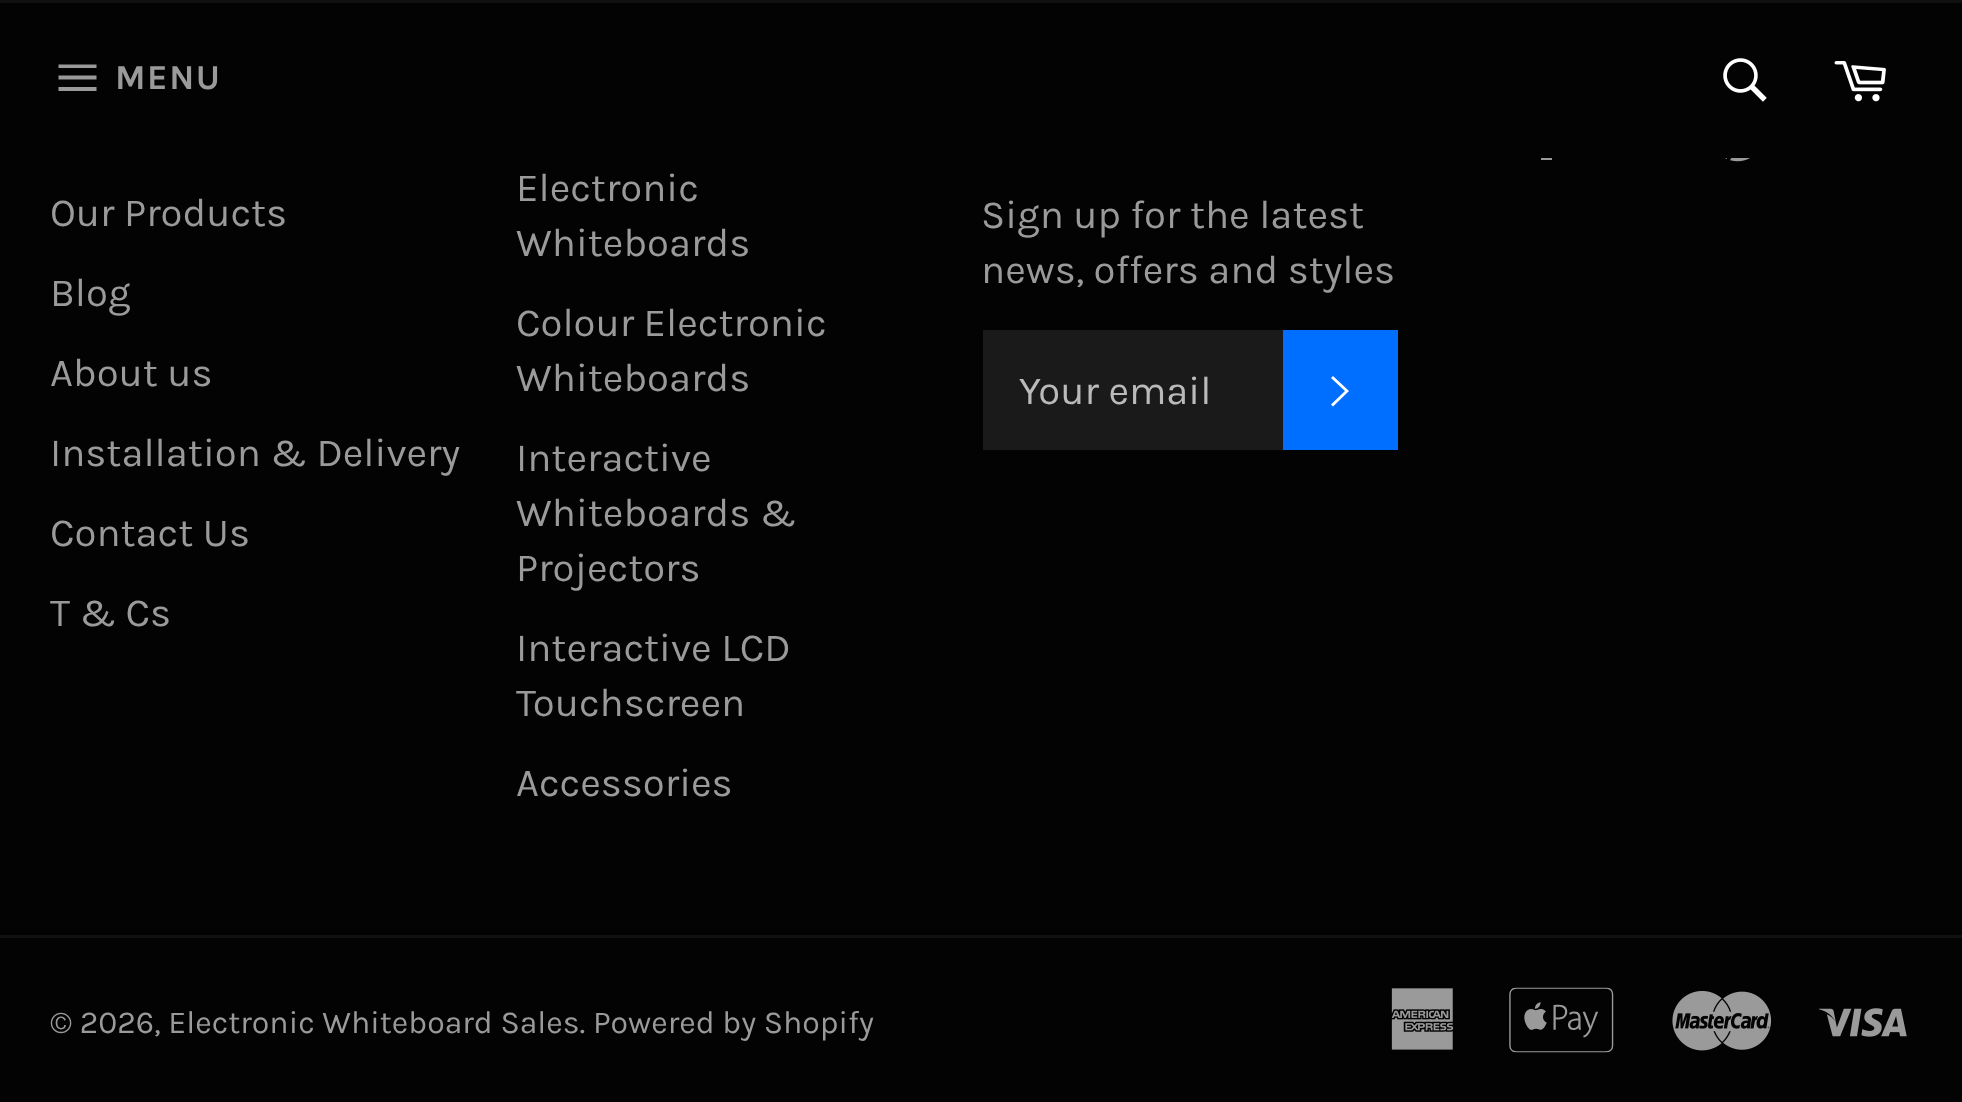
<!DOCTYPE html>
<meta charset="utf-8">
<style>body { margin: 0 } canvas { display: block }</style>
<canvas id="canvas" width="1962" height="1102"></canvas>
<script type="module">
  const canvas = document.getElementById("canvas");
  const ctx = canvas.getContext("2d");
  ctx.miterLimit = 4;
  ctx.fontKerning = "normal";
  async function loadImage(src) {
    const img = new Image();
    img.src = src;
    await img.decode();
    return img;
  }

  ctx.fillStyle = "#030303";
  ctx.fillRect(0, 0, 1962, 1102);
  ctx.fillStyle = "#9a9a9a";
  ctx.beginPath();
  ctx.moveTo(1552, 127);
  ctx.bezierCurveTo(1552, 118, 1551, 118, 1560, 118);
  ctx.lineTo(1560, 110);
  ctx.bezierCurveTo(1544, 110, 1541, 110, 1541, 127);
  ctx.lineTo(1535, 127);
  ctx.lineTo(1535, 135);
  ctx.lineTo(1541, 135);
  ctx.lineTo(1541, 160);
  ctx.lineTo(1552, 160);
  ctx.lineTo(1552, 135);
  ctx.lineTo(1559, 135);
  ctx.lineTo(1560, 127);
  ctx.closePath();
  ctx.fill();
  ctx.fillStyle = "#030303";
  ctx.fillRect(1535, 110, 25, 48);
  ctx.fillStyle = "#101010";
  ctx.fillRect(0, 0, 1962, 3);
  ctx.fillStyle = "#9a9a9a";
  ctx.beginPath();
  ctx.moveTo(58.5, 75.5);
  ctx.lineTo(96.5, 75.5);
  ctx.lineTo(96.5, 79.5);
  ctx.lineTo(58.5, 79.5);
  ctx.closePath();
  ctx.moveTo(58.5, 64.5);
  ctx.lineTo(96.5, 64.5);
  ctx.lineTo(96.5, 68);
  ctx.lineTo(58.5, 68);
  ctx.closePath();
  ctx.moveTo(58.5, 87);
  ctx.lineTo(96.5, 87);
  ctx.lineTo(96.5, 91);
  ctx.lineTo(58.5, 91);
  ctx.closePath();
  ctx.fill();
  ctx.letterSpacing = "1.5px";
  ctx.font = "bold 35px Karla";
  ctx.fillText("MENU", 115, 89);
  ctx.drawImage(await loadImage("img1.png"), 1723, 58, 44, 44);
  ctx.drawImage(await loadImage("img2.png"), 1834, 61, 52, 41);
  ctx.drawImage(await loadImage("img3.png"), 1725, 158, 25, 4);
  ctx.letterSpacing = "0px";
  ctx.font = "40px Karla";
  ctx.fillText("Our Products", 50, 226);
  ctx.fillText("Blog", 50, 306);
  ctx.fillText("About us", 50, 386);
  ctx.fillText("Installation & Delivery", 50, 466);
  ctx.fillText("Contact Us", 50, 546);
  ctx.fillText("T & Cs", 50, 626);
  ctx.fillText("Electronic", 516, 201);
  ctx.fillText("Whiteboards", 516, 256);
  ctx.fillText("Colour Electronic", 516, 336);
  ctx.fillText("Whiteboards", 516, 391);
  ctx.fillText("Interactive", 516, 471);
  ctx.fillText("Whiteboards &", 516, 526);
  ctx.fillText("Projectors", 516, 581);
  ctx.fillText("Interactive LCD", 516, 661);
  ctx.fillText("Touchscreen", 516, 716);
  ctx.fillText("Accessories", 516, 796);
  ctx.fillText("Sign up for the latest", 981, 228);
  ctx.fillText("news, offers and styles", 981, 283);
  ctx.fillStyle = "#1a1a1a";
  ctx.fillRect(983, 330, 300, 120);
  ctx.fillStyle = "#bababa";
  ctx.fillText("Your email", 1019, 404);
  ctx.fillStyle = "#006eff";
  ctx.fillRect(1283, 330, 115, 120);
  ctx.fillStyle = "#ffffff";
  ctx.beginPath();
  ctx.moveTo(1331, 378);
  ctx.lineTo(1333, 376);
  ctx.lineTo(1349, 391);
  ctx.lineTo(1333, 406.5);
  ctx.lineTo(1331, 404.5);
  ctx.lineTo(1345, 391);
  ctx.closePath();
  ctx.fill();
  ctx.fillStyle = "#101010";
  ctx.fillRect(0, 935, 1962, 3);
  ctx.font = "32px Karla";
  ctx.fillStyle = "#9a9a9a";
  ctx.fillText("© 2026, Electronic Whiteboard Sales. Powered by Shopify", 50, 1033);
  ctx.drawImage(await loadImage("img4.png"), 1391, 988, 63, 62);
  ctx.drawImage(await loadImage("img5.png"), 1509, 987, 105, 66);
  ctx.drawImage(await loadImage("img6.png"), 1672, 991, 100, 60);
  ctx.drawImage(await loadImage("img7.png"), 1818, 1008, 89, 29);
</script>
